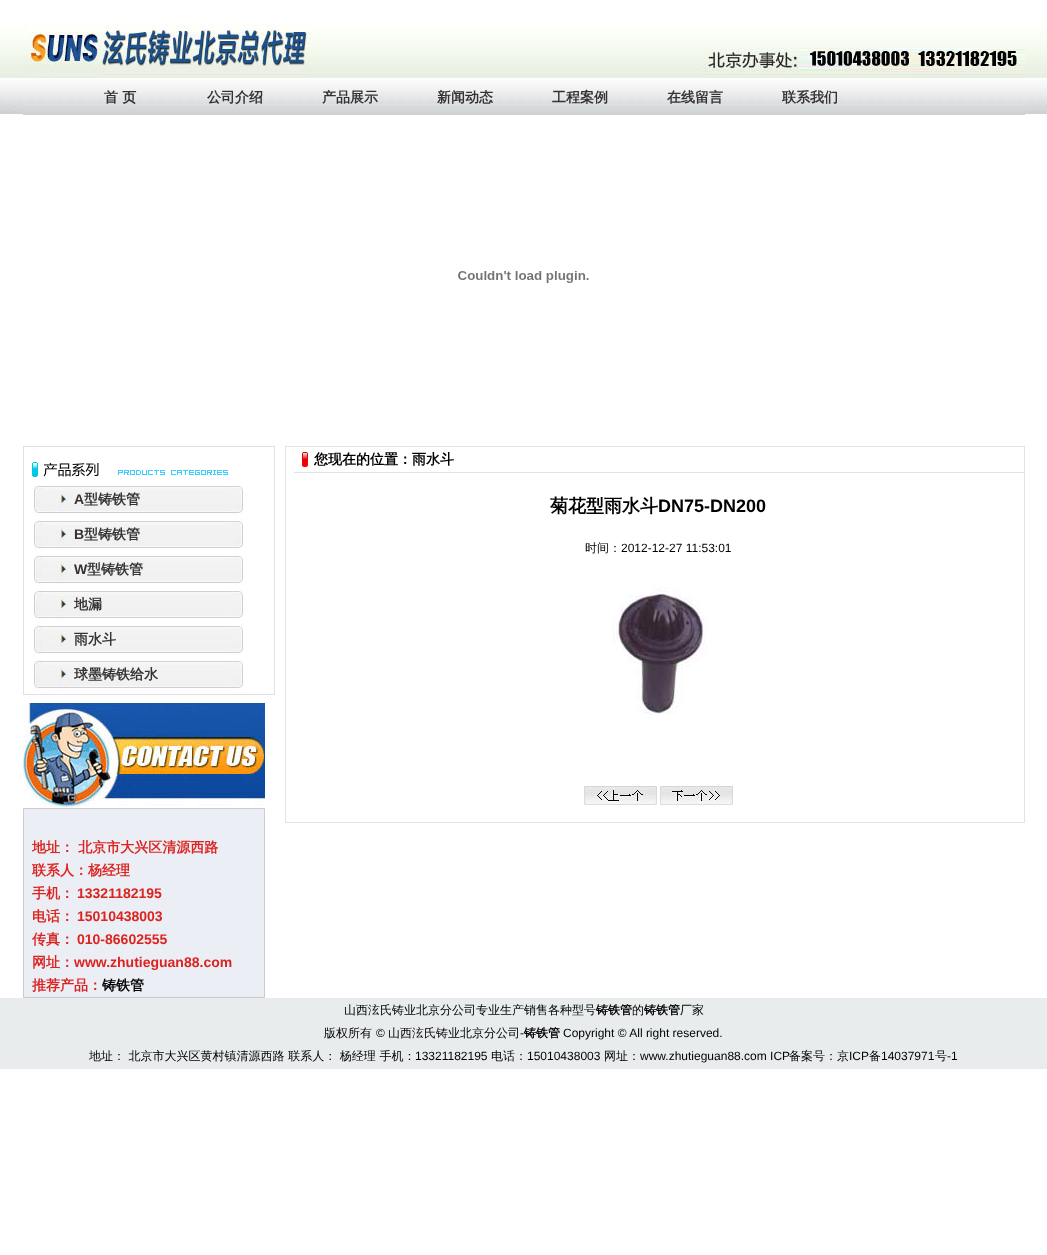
<!DOCTYPE html>
<meta charset="utf-8">
<style>body { margin: 0 } canvas { display: block }</style>
<canvas id="canvas" width="1047" height="1255"></canvas>
<script type="module">
  const canvas = document.getElementById("canvas");
  const ctx = canvas.getContext("2d");
  ctx.miterLimit = 4;
  ctx.fontKerning = "normal";
  async function loadImage(src) {
    const img = new Image();
    img.src = src;
    await img.decode();
    return img;
  }

  ctx.fillStyle = "#ffffff";
  ctx.fillRect(0, 0, 1047, 1255);
  ctx.drawImage(await loadImage("img1.png"), 0, 24, 1047, 90);
  ctx.drawImage(await loadImage("img2.png"), 23, 24, 287, 55);
  ctx.drawImage(await loadImage("img3.png"), 703, 48, 322, 31);
  ctx.drawImage(await loadImage("img4.png"), 23, 104, 1002, 11);
  ctx.font = "bold 14px WenQuanYi Zen Hei";
  ctx.fillStyle = "#333333";
  ctx.fillText("首 页", 104, 102);
  ctx.fillText("公司介绍", 207, 102);
  ctx.fillText("产品展示", 322, 102);
  ctx.fillText("新闻动态", 437, 102);
  ctx.fillText("工程案例", 552, 102);
  ctx.fillText("在线留言", 667, 102);
  ctx.fillText("联系我们", 782, 102);
  ctx.drawImage(await loadImage("img5.png"), 458, 271, 131, 12);
  ctx.strokeStyle = "#e1e1e1";
  ctx.strokeRect(23.5, 446.5, 251, 248);
  ctx.drawImage(await loadImage("img6.png"), 32, 462, 196, 15);
  ctx.drawImage(await loadImage("img7.png"), 34, 484, 209, 31);
  ctx.font = "bold 14px Liberation Sans";
  ctx.fillText("A", 74, 504);
  ctx.font = "bold 14px WenQuanYi Zen Hei";
  ctx.fillText("型铸铁管", 84, 504);
  ctx.drawImage(await loadImage("img7.png"), 34, 519, 209, 31);
  ctx.font = "bold 14px Liberation Sans";
  ctx.fillText("B", 74, 539);
  ctx.font = "bold 14px WenQuanYi Zen Hei";
  ctx.fillText("型铸铁管", 84, 539);
  ctx.drawImage(await loadImage("img7.png"), 34, 554, 209, 31);
  ctx.font = "bold 14px Liberation Sans";
  ctx.fillText("W", 74, 574);
  ctx.font = "bold 14px WenQuanYi Zen Hei";
  ctx.fillText("型铸铁管", 87, 574);
  ctx.drawImage(await loadImage("img7.png"), 34, 589, 209, 31);
  ctx.fillText("地漏", 74, 609);
  ctx.drawImage(await loadImage("img7.png"), 34, 624, 209, 31);
  ctx.fillText("雨水斗", 74, 644);
  ctx.drawImage(await loadImage("img7.png"), 34, 659, 209, 31);
  ctx.fillText("球墨铸铁给水", 74, 679);
  ctx.drawImage(await loadImage("img8.png"), 23, 703, 242, 105);
  ctx.fillStyle = "#ebeef5";
  ctx.beginPath();
  ctx.rect(23.5, 808.5, 241, 189);
  ctx.fill();
  ctx.strokeStyle = "#cccccc";
  ctx.stroke();
  ctx.fillStyle = "#db2420";
  ctx.fillText("地址： 北京市大兴区清源西路", 32, 852);
  ctx.fillText("联系人：杨经理", 32, 875);
  ctx.fillText("手机：", 32, 898);
  ctx.font = "bold 14px Liberation Sans";
  ctx.fillText("13321182195", 77, 898);
  ctx.font = "bold 14px WenQuanYi Zen Hei";
  ctx.fillText("电话：", 32, 921);
  ctx.font = "bold 14px Liberation Sans";
  ctx.fillText("15010438003", 77, 921);
  ctx.font = "bold 14px WenQuanYi Zen Hei";
  ctx.fillText("传真：", 32, 944);
  ctx.font = "bold 14px Liberation Sans";
  ctx.fillText("010-86602555", 77, 944);
  ctx.font = "bold 14px WenQuanYi Zen Hei";
  ctx.fillText("网址：", 32, 967);
  ctx.font = "bold 14px Liberation Sans";
  ctx.fillText("www.zhutieguan88.com", 74, 967);
  ctx.font = "bold 14px WenQuanYi Zen Hei";
  ctx.fillText("推荐产品：", 32, 990);
  ctx.fillStyle = "#000000";
  ctx.fillText("铸铁管", 102, 990);
  ctx.strokeStyle = "#e3e3e3";
  ctx.strokeRect(285.5, 446.5, 739, 376);
  ctx.drawImage(await loadImage("img9.png"), 302, 452, 6, 15);
  ctx.fillStyle = "#e3e3e3";
  ctx.fillRect(294, 472, 730, 1);
  ctx.fillStyle = "#000000";
  ctx.fillText("您现在的位置：雨水斗", 314, 464);
  ctx.font = "bold 18px WenQuanYi Zen Hei";
  ctx.fillText("菊花型雨水斗", 550, 512);
  ctx.font = "bold 18px Liberation Sans";
  ctx.fillText("DN75-DN200", 658, 512);
  ctx.font = "500 12px WenQuanYi Zen Hei";
  ctx.fillText("时间：", 585, 552);
  ctx.font = "12px Liberation Sans";
  ctx.fillText("2012-12-27 11:53:01", 621, 552);
  ctx.drawImage(await loadImage("img10.png"), 612, 587, 96, 128);
  ctx.drawImage(await loadImage("img11.png"), 584, 786, 73, 19);
  ctx.drawImage(await loadImage("img12.png"), 660, 786, 73, 19);
  ctx.fillStyle = "#e9eced";
  ctx.fillRect(0, 998, 1047, 71);
  ctx.font = "500 12px WenQuanYi Zen Hei";
  ctx.fillStyle = "#000000";
  ctx.fillText("山西泫氏铸业北京分公司专业生产销售各种型号", 344, 1014);
  ctx.font = "bold 12px WenQuanYi Zen Hei";
  ctx.fillText("铸铁管", 596, 1014);
  ctx.font = "500 12px WenQuanYi Zen Hei";
  ctx.fillText("的", 632, 1014);
  ctx.font = "bold 12px WenQuanYi Zen Hei";
  ctx.fillText("铸铁管", 644, 1014);
  ctx.font = "500 12px WenQuanYi Zen Hei";
  ctx.fillText("厂家", 680, 1014);
  ctx.fillText("版权所有", 324, 1037);
  ctx.font = "12px Liberation Sans";
  ctx.fillText("©", 376, 1037);
  ctx.font = "500 12px WenQuanYi Zen Hei";
  ctx.fillText("山西泫氏铸业北京分公司", 388, 1037);
  ctx.font = "12px Liberation Sans";
  ctx.fillText("-", 520, 1037);
  ctx.font = "bold 12px WenQuanYi Zen Hei";
  ctx.fillText("铸铁管", 524, 1037);
  ctx.font = "12px Liberation Sans";
  ctx.fillText("Copyright © All right reserved.", 563, 1037);
  ctx.font = "500 12px WenQuanYi Zen Hei";
  ctx.fillText("地址： 北京市大兴区黄村镇清源西路 联系人： 杨经理 手机：", 89, 1060);
  ctx.font = "12px Liberation Sans";
  ctx.fillText("13321182195", 415, 1060);
  ctx.font = "500 12px WenQuanYi Zen Hei";
  ctx.fillText("电话：", 491, 1060);
  ctx.font = "12px Liberation Sans";
  ctx.fillText("15010438003", 527, 1060);
  ctx.font = "500 12px WenQuanYi Zen Hei";
  ctx.fillText("网址：", 604, 1060);
  ctx.font = "12px Liberation Sans";
  ctx.fillText("www.zhutieguan88.com ICP", 640, 1060);
  ctx.font = "500 12px WenQuanYi Zen Hei";
  ctx.fillText("备案号：京", 789, 1060);
  ctx.font = "12px Liberation Sans";
  ctx.fillText("ICP", 849, 1060);
  ctx.font = "500 12px WenQuanYi Zen Hei";
  ctx.fillText("备", 869, 1060);
  ctx.font = "12px Liberation Sans";
  ctx.fillText("14037971", 881, 1060);
  ctx.font = "500 12px WenQuanYi Zen Hei";
  ctx.fillText("号", 935, 1060);
  ctx.font = "12px Liberation Sans";
  ctx.fillText("-1", 947, 1060);
</script>
